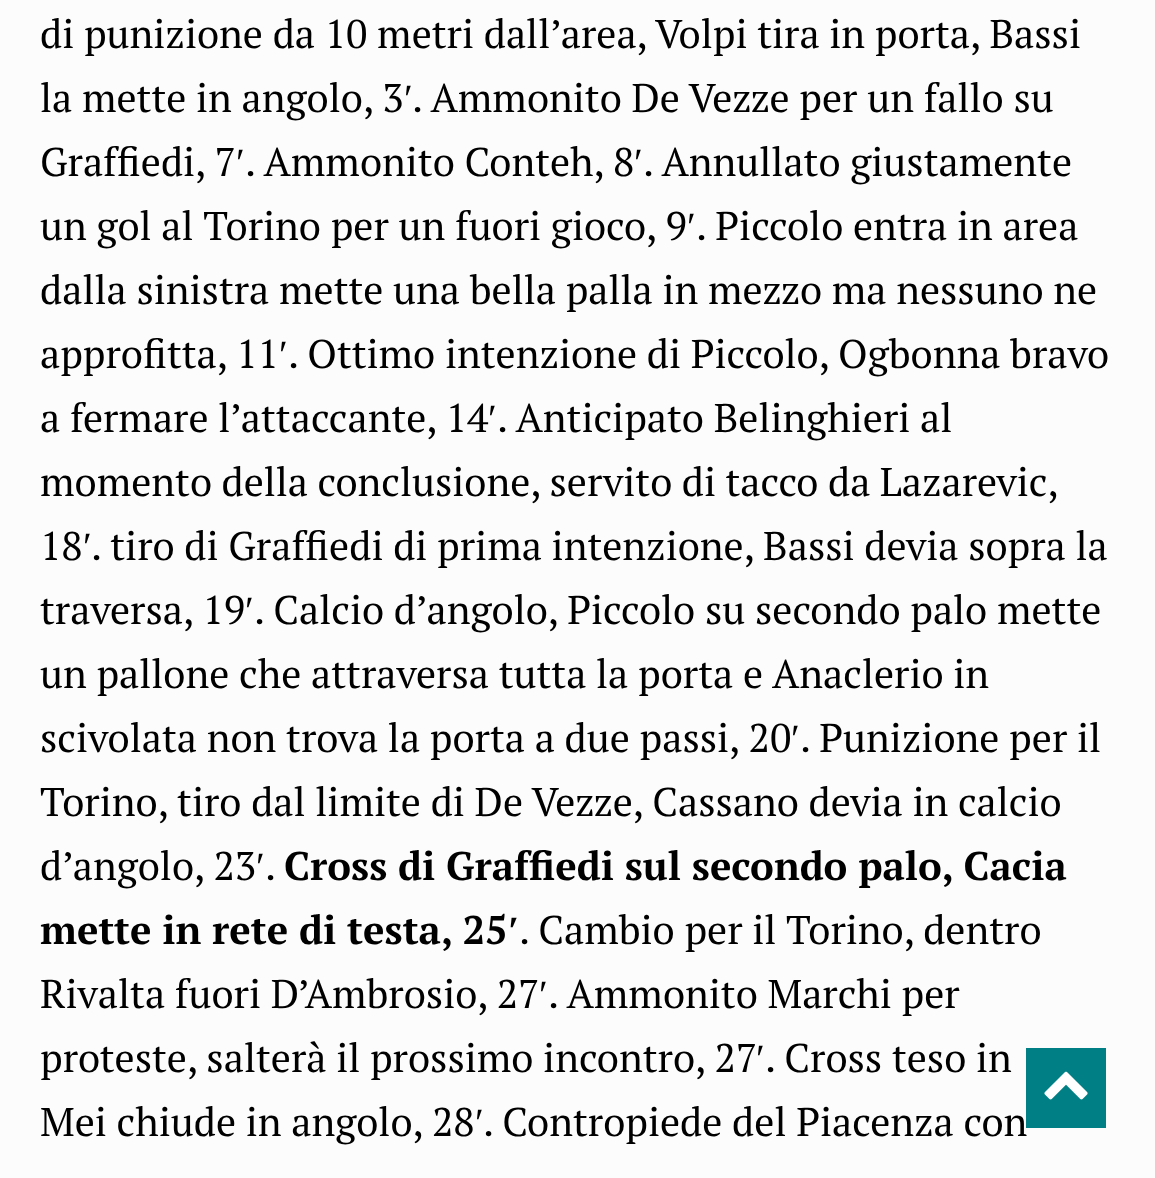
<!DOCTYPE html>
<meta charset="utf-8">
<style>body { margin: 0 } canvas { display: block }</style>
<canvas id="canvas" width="1155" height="1178"></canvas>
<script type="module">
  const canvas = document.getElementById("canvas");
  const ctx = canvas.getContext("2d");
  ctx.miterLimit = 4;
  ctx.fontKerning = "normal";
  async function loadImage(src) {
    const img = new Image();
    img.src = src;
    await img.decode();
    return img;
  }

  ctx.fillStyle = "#fcfcfc";
  ctx.fillRect(0, 0, 1155, 1178);
  ctx.font = "40px PT Serif";
  ctx.fillStyle = "#000000";
  ctx.fillText("di punizione da 10 metri dall’area, Volpi tira in porta, Bassi", 40, 48);
  ctx.fillText("la mette in angolo, 3", 40, 112);
  ctx.font = "40px Liberation Serif";
  ctx.fillText("′", 404, 112);
  ctx.font = "40px PT Serif";
  ctx.fillText(". Ammonito De Vezze per un fallo su", 412, 112);
  ctx.fillText("Graffiedi, 7", 40, 176);
  ctx.font = "40px Liberation Serif";
  ctx.fillText("′", 236, 176);
  ctx.font = "40px PT Serif";
  ctx.fillText(". Ammonito Conteh, 8", 245, 176);
  ctx.font = "40px Liberation Serif";
  ctx.fillText("′", 634, 176);
  ctx.font = "40px PT Serif";
  ctx.fillText(". Annullato giustamente", 643, 176);
  ctx.fillText("un gol al Torino per un fuori gioco, 9", 40, 240);
  ctx.font = "40px Liberation Serif";
  ctx.fillText("′", 687, 240);
  ctx.font = "40px PT Serif";
  ctx.fillText(". Piccolo entra in area", 696, 240);
  ctx.fillText("dalla sinistra mette una bella palla in mezzo ma nessuno ne", 40, 304);
  ctx.fillText("approfitta, 11", 40, 368);
  ctx.font = "40px Liberation Serif";
  ctx.fillText("′", 279, 368);
  ctx.font = "40px PT Serif";
  ctx.fillText(". Ottimo intenzione di Piccolo, Ogbonna bravo", 288, 368);
  ctx.fillText("a fermare l’attaccante, 14", 40, 432);
  ctx.font = "40px Liberation Serif";
  ctx.fillText("′", 488, 432);
  ctx.font = "40px PT Serif";
  ctx.fillText(". Anticipato Belinghieri al", 497, 432);
  ctx.wordSpacing = "-0.25px";
  ctx.fillText("momento della conclusione, servito di tacco da Lazarevic,", 40, 496);
  ctx.wordSpacing = "0px";
  ctx.fillText("18", 40, 560);
  ctx.font = "40px Liberation Serif";
  ctx.fillText("′", 83, 560);
  ctx.font = "40px PT Serif";
  ctx.fillText(". tiro di Graffiedi di prima intenzione, Bassi devia sopra la", 91, 560);
  ctx.fillText("traversa, 19", 40, 624);
  ctx.font = "40px Liberation Serif";
  ctx.fillText("′", 245, 624);
  ctx.font = "40px PT Serif";
  ctx.fillText(". Calcio d’angolo, Piccolo su secondo palo mette", 254, 624);
  ctx.fillText("un pallone che attraversa tutta la porta e Anaclerio in", 40, 688);
  ctx.fillText("scivolata non trova la porta a due passi, 20", 40, 752);
  ctx.font = "40px Liberation Serif";
  ctx.fillText("′", 791, 752);
  ctx.font = "40px PT Serif";
  ctx.fillText(". Punizione per il", 800, 752);
  ctx.fillText("Torino, tiro dal limite di De Vezze, Cassano devia in calcio", 40, 816);
  ctx.fillText("d’angolo, 23", 40, 880);
  ctx.font = "40px Liberation Serif";
  ctx.fillText("′", 256, 880);
  ctx.font = "bold 40px PT Serif";
  ctx.fillText("Cross di Graffiedi sul secondo palo, Cacia", 284, 880);
  ctx.font = "40px PT Serif";
  ctx.fillText(".", 265, 880);
  ctx.font = "bold 40px PT Serif";
  ctx.fillText("mette in rete di testa, 25", 40, 944);
  ctx.font = "bold 40px Liberation Serif";
  ctx.fillText("′", 508, 944);
  ctx.font = "40px PT Serif";
  ctx.fillText(". Cambio per il Torino, dentro", 519, 944);
  ctx.fillText("Rivalta fuori D’Ambrosio, 27", 40, 1008);
  ctx.font = "40px Liberation Serif";
  ctx.fillText("′", 539, 1008);
  ctx.font = "40px PT Serif";
  ctx.fillText(". Ammonito Marchi per", 548, 1008);
  ctx.fillText("proteste, salterà il prossimo incontro, 27", 40, 1072);
  ctx.font = "40px Liberation Serif";
  ctx.fillText("′", 756, 1072);
  ctx.font = "40px PT Serif";
  ctx.fillText(". Cross teso in", 765, 1072);
  ctx.fillText("Mei chiude in angolo, 28", 40, 1136);
  ctx.font = "40px Liberation Serif";
  ctx.fillText("′", 475, 1136);
  ctx.font = "40px PT Serif";
  ctx.fillText(". Contropiede del Piacenza con", 483, 1136);
  ctx.fillStyle = "#008084";
  ctx.fillRect(1026, 1048, 80, 80);
  ctx.drawImage(await loadImage("img1.png"), 1044, 1071, 44, 29);
</script>
